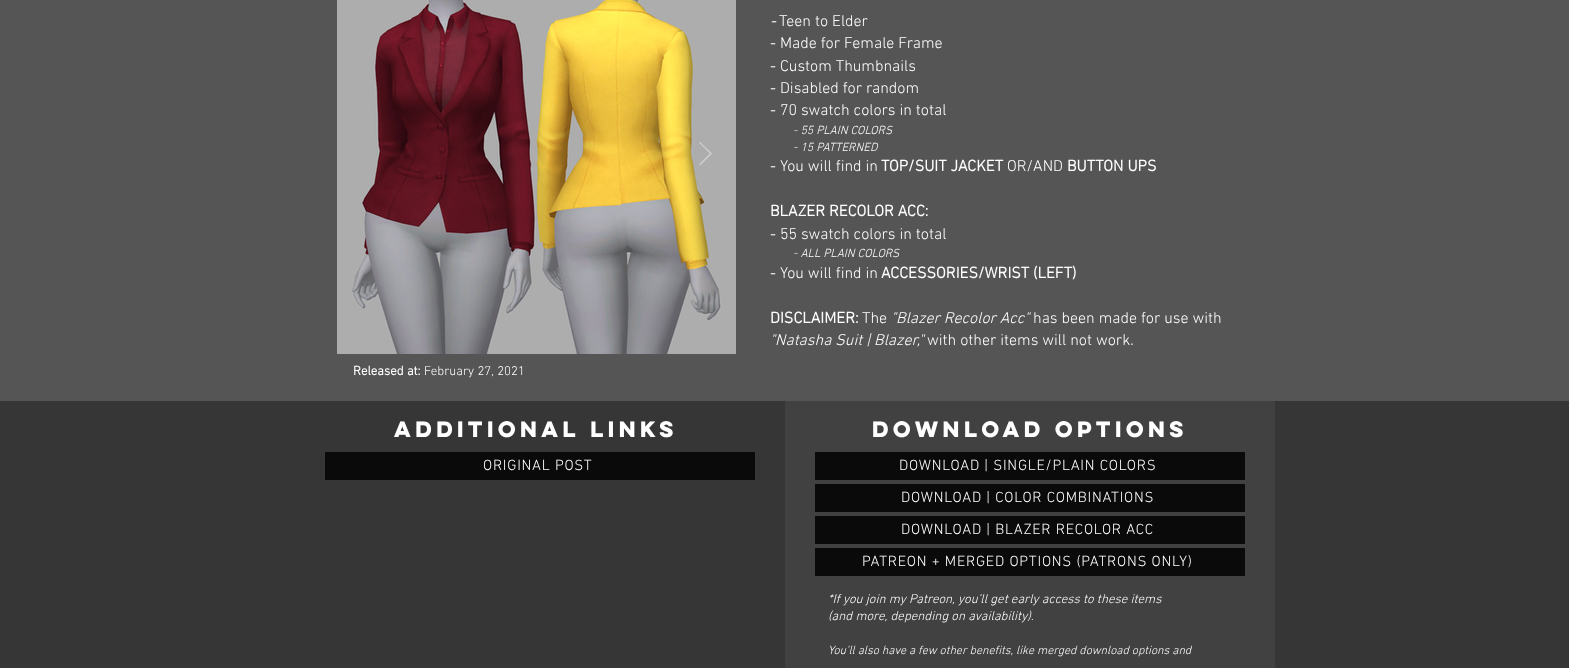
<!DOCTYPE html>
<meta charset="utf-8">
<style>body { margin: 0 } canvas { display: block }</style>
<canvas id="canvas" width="1569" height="668"></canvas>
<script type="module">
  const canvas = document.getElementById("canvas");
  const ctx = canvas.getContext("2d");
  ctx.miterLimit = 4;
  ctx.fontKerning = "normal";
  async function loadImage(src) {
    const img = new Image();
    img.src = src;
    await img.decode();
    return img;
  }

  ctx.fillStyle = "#363636";
  ctx.fillRect(0, 0, 1569, 668);
  ctx.fillStyle = "#555555";
  ctx.fillRect(0, 0, 1569, 401);
  ctx.font = "italic 300 16px 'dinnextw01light'";
  ctx.fillStyle = "#ffffff";
  ctx.fillText("-", 770, 26);
  ctx.font = "300 16px 'dinnextw01light'";
  ctx.fillText("Teen to Elder", 779, 26);
  ctx.fillText("- Made for Female Frame", 770, 48);
  ctx.fillText("- Custom Thumbnails", 770, 71);
  ctx.fillText("- Disabled for random", 770, 93);
  ctx.fillText("- 70 swatch colors in total", 770, 115);
  ctx.font = "italic 300 12px 'dinnextw01light'";
  ctx.fillText("- 55 PLAIN COLORS", 793, 134);
  ctx.fillText("- 15 PATTERNED", 793, 151);
  ctx.font = "300 16px 'dinnextw01light'";
  ctx.fillText("- You will find in", 770, 171);
  ctx.font = "bold 16px 'dinnextw01light'";
  ctx.fillText("TOP/SUIT JACKET", 881, 171);
  ctx.font = "300 16px 'dinnextw01light'";
  ctx.fillText("OR/AND", 1007, 171);
  ctx.font = "bold 16px 'dinnextw01light'";
  ctx.fillText("BUTTON UPS", 1067, 171);
  ctx.fillText("BLAZER RECOLOR ACC:", 770, 216);
  ctx.font = "300 16px 'dinnextw01light'";
  ctx.fillText("- 55 swatch colors in total", 770, 239);
  ctx.font = "italic 300 12px 'dinnextw01light'";
  ctx.fillText("- ALL PLAIN COLORS", 793, 257);
  ctx.font = "300 16px 'dinnextw01light'";
  ctx.fillText("- You will find in", 770, 278);
  ctx.font = "bold 16px 'dinnextw01light'";
  ctx.fillText("ACCESSORIES/WRIST (LEFT)", 881, 278);
  ctx.fillText("DISCLAIMER:", 770, 323);
  ctx.font = "300 16px 'dinnextw01light'";
  ctx.fillText("The", 862, 323);
  ctx.font = "italic 300 16px 'dinnextw01light'";
  ctx.fillText("\"Blazer Recolor Acc\"", 891, 323);
  ctx.font = "300 16px 'dinnextw01light'";
  ctx.fillText("has been made for use with", 1033, 323);
  ctx.font = "italic 300 16px 'dinnextw01light'";
  ctx.fillText("\"Natasha Suit | Blazer,\"", 770, 345);
  ctx.font = "300 16px 'dinnextw01light'";
  ctx.fillText("with other items will not work.", 927, 345);
  ctx.drawImage(await loadImage("img1.png"), 337, 0, 399, 354);
  ctx.fillStyle = "#d0d0d0";
  ctx.beginPath();
  ctx.moveTo(699, 142.5);
  ctx.lineTo(700, 142);
  ctx.lineTo(712, 153.5);
  ctx.lineTo(700, 165.5);
  ctx.lineTo(699, 164.5);
  ctx.lineTo(710, 153.5);
  ctx.closePath();
  ctx.fill();
  ctx.font = "bold 13px 'dinnextw01light'";
  ctx.fillStyle = "#ffffff";
  ctx.fillText("Released at:", 353, 375);
  ctx.font = "300 13px 'dinnextw01light'";
  ctx.fillText("February 27, 2021", 424, 375);
  ctx.font = "bold 20px 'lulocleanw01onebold'";
  ctx.fillText("ADDITIONAL LINKS", 394, 437);
  ctx.fillStyle = "#0a0a0a";
  ctx.fillRect(325, 452, 430, 28);
  ctx.letterSpacing = "0.75px";
  ctx.font = "300 15px 'dinnextw01light'";
  ctx.fillStyle = "#ffffff";
  ctx.fillText("ORIGINAL POST", 483, 470);
  ctx.fillStyle = "#414141";
  ctx.fillRect(785, 401, 490, 267);
  ctx.letterSpacing = "0px";
  ctx.font = "bold 20px 'lulocleanw01onebold'";
  ctx.fillStyle = "#ffffff";
  ctx.fillText("DOWNLOAD OPTIONS", 872, 437);
  ctx.fillStyle = "#0a0a0a";
  ctx.fillRect(815, 452, 430, 28);
  ctx.letterSpacing = "0.75px";
  ctx.font = "300 15px 'dinnextw01light'";
  ctx.fillStyle = "#ffffff";
  ctx.fillText("DOWNLOAD | SINGLE/PLAIN COLORS", 899, 470);
  ctx.fillStyle = "#0a0a0a";
  ctx.fillRect(815, 484, 430, 28);
  ctx.fillStyle = "#ffffff";
  ctx.fillText("DOWNLOAD | COLOR COMBINATIONS", 901, 502);
  ctx.fillStyle = "#0a0a0a";
  ctx.fillRect(815, 516, 430, 28);
  ctx.fillStyle = "#ffffff";
  ctx.fillText("DOWNLOAD | BLAZER RECOLOR ACC", 901, 534);
  ctx.fillStyle = "#0a0a0a";
  ctx.fillRect(815, 548, 430, 28);
  ctx.fillStyle = "#ffffff";
  ctx.fillText("PATREON + MERGED OPTIONS (PATRONS ONLY)", 862, 566);
  ctx.letterSpacing = "0px";
  ctx.font = "italic 300 13px 'dinnextw01light'";
  ctx.fillText("*If you join my Patreon, you’ll get early access to these items", 828, 603);
  ctx.fillText("(and more, depending on availability).", 828, 620);
  ctx.font = "italic 300 12px 'dinnextw01light'";
  ctx.fillText("You’ll also have a few other benefits, like merged download options and", 828, 654);
</script>
